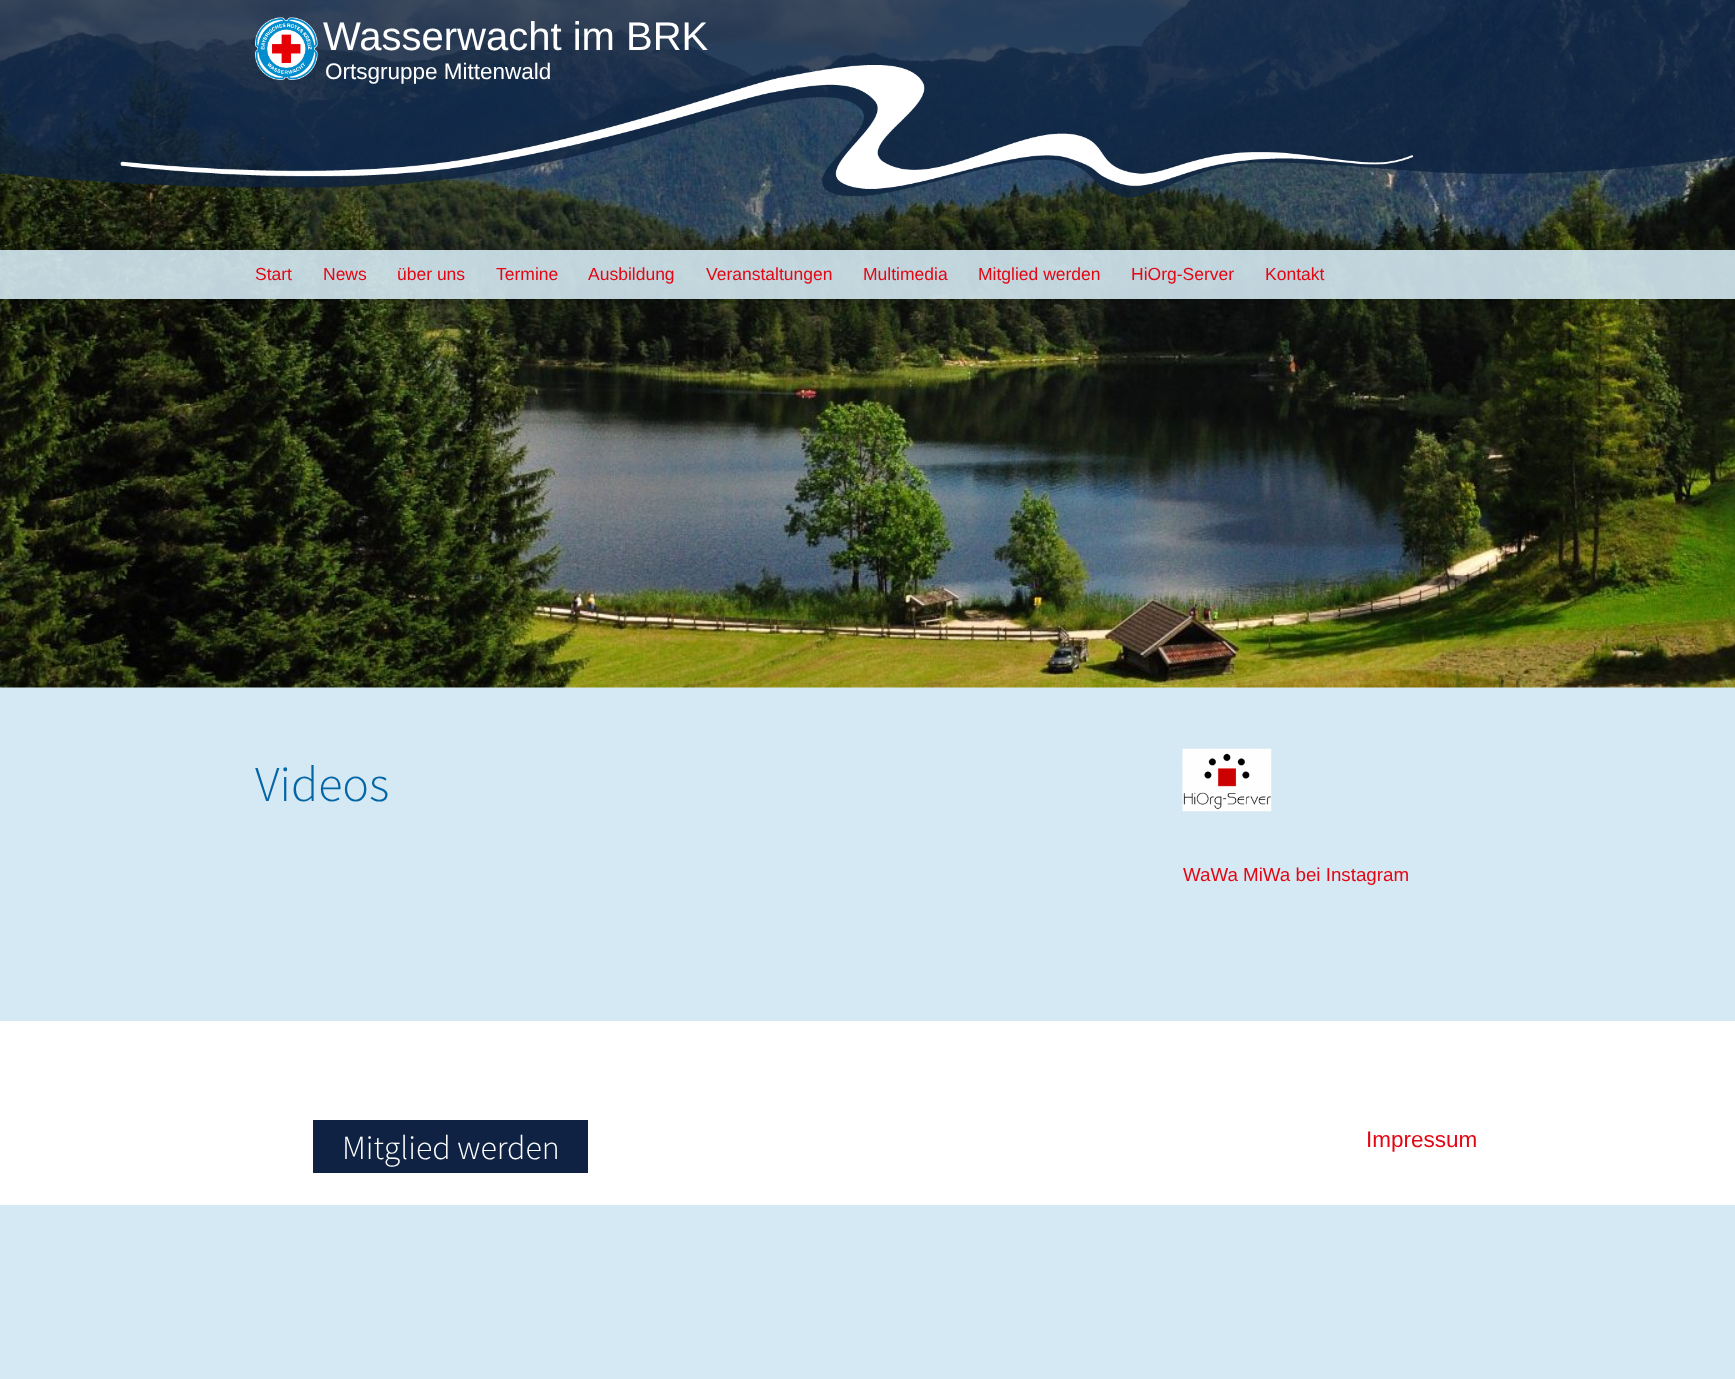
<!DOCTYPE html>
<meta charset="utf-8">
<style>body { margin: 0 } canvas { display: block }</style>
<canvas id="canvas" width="1735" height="1379"></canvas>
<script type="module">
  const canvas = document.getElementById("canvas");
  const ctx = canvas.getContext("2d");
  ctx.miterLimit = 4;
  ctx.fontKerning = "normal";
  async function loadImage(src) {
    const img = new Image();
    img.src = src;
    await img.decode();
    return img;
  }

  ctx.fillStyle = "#d4e9f3";
  ctx.fillRect(0, 0, 1735, 1379);
  ctx.drawImage(await loadImage("img2.png"), 0, 0, 1735, 688);
  ctx.drawImage(await loadImage("img1.png"), 0, 0, 1735, 198);
  ctx.drawImage(await loadImage("img3.png"), 255, 17, 63, 63);
  ctx.font = "40px Liberation Sans";
  ctx.fillStyle = "#ffffff";
  ctx.fillText("Wasserwacht im BRK", 323, 50);
  ctx.font = "22.5px Liberation Sans";
  ctx.fillText("Ortsgruppe Mittenwald", 325, 79);
  ctx.save();
  ctx.beginPath();
  ctx.moveTo(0, 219);
  ctx.lineTo(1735, 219);
  ctx.lineTo(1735, 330);
  ctx.lineTo(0, 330);
  ctx.closePath();
  ctx.moveTo(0, 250);
  ctx.lineTo(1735, 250);
  ctx.lineTo(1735, 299);
  ctx.lineTo(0, 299);
  ctx.closePath();
  ctx.clip("evenodd");
  ctx.fillStyle = "rgba(0, 0, 0, 0.3)";
  ctx.filter = "blur(10px)";
  ctx.beginPath();
  ctx.rect(0, 250, 1735, 49);
  ctx.fill();
  ctx.filter = "none";
  ctx.restore();
  ctx.fillStyle = "rgba(212, 233, 243, 0.9)";
  ctx.fillRect(0, 250, 1735, 49);
  ctx.font = "17.5px Liberation Sans";
  ctx.fillStyle = "#e30613";
  ctx.fillText("Start", 255, 280);
  ctx.fillText("News", 323, 280);
  ctx.fillText("über uns", 397, 280);
  ctx.fillText("Termine", 496, 280);
  ctx.fillText("Ausbildung", 588, 280);
  ctx.fillText("Veranstaltungen", 706, 280);
  ctx.fillText("Multimedia", 863, 280);
  ctx.fillText("Mitglied werden", 978, 280);
  ctx.fillText("HiOrg-Server", 1131, 280);
  ctx.fillText("Kontakt", 1265, 280);
  ctx.font = "300 50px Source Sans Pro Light";
  ctx.fillStyle = "#0365a5";
  ctx.fillText("Videos", 255, 801);
  ctx.drawImage(await loadImage("img4.png"), 1182, 748, 90, 64);
  ctx.font = "18.75px Liberation Sans";
  ctx.fillStyle = "#e30613";
  ctx.fillText("WaWa MiWa bei Instagram", 1183, 881);
  ctx.fillStyle = "#ffffff";
  ctx.fillRect(0, 1021, 1735, 184);
  ctx.fillStyle = "#102243";
  ctx.fillRect(313, 1120, 275, 53);
  ctx.font = "300 33.75px Source Sans Pro Light";
  ctx.fillStyle = "#ffffff";
  ctx.fillText("Mitglied werden", 342, 1159);
  ctx.font = "22.5px Liberation Sans";
  ctx.fillStyle = "#e30613";
  ctx.fillText("Impressum", 1366, 1147);
</script>
